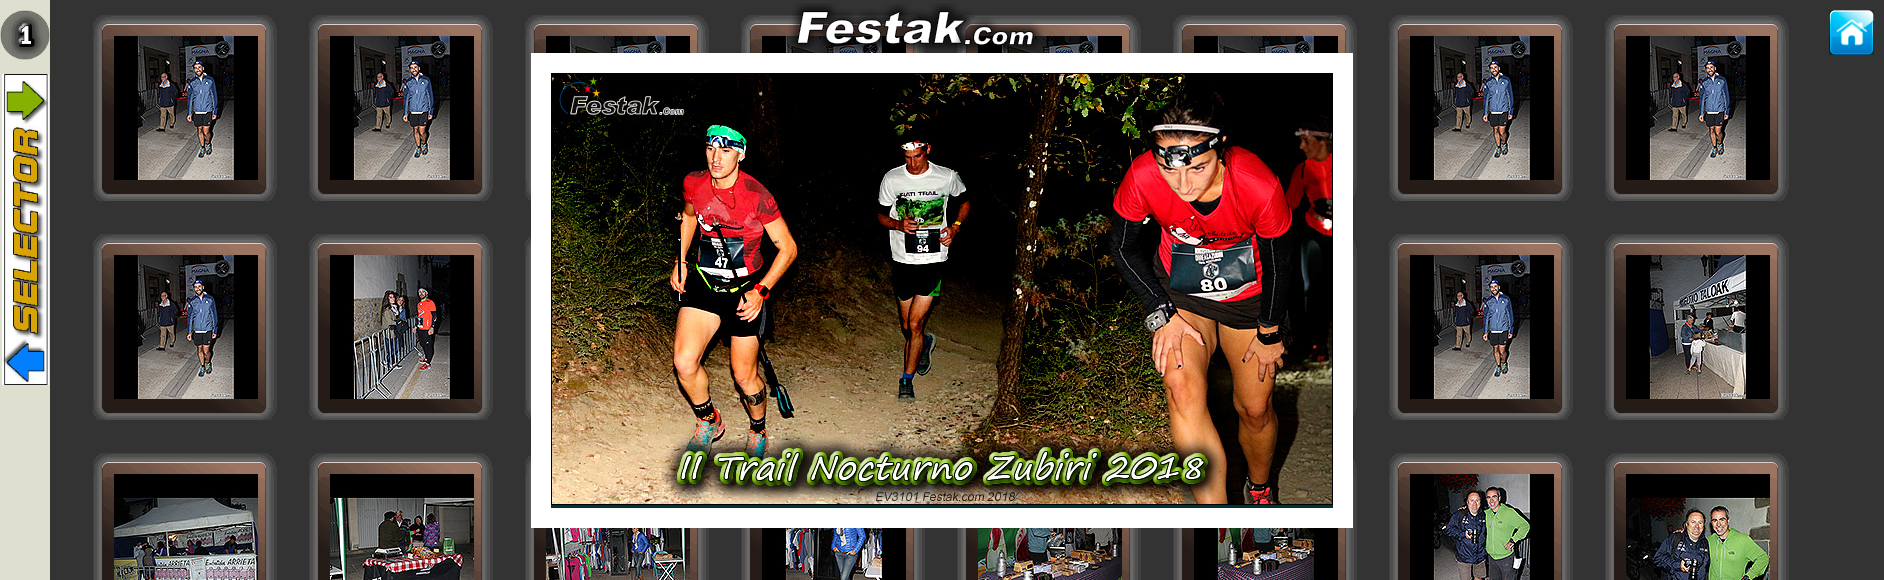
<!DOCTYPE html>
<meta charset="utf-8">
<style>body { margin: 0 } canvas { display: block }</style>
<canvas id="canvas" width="1884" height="580"></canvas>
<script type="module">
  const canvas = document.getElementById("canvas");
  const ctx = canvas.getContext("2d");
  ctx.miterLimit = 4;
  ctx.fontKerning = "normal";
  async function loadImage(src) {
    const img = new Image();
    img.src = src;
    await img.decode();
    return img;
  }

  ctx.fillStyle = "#333333";
  ctx.fillRect(0, 0, 1884, 580);
  ctx.fillStyle = "#dedfcf";
  ctx.fillRect(0, 0, 50, 580);
  ctx.drawImage(await loadImage("img1.png"), 0, 10, 50, 50);
  ctx.drawImage(await loadImage("img2.png"), 2, 74, 47, 311);
  ctx.drawImage(await loadImage("img3.png"), 93, 15, 184, 186);
  ctx.drawImage(await loadImage("img3.png"), 309, 15, 184, 186);
  ctx.drawImage(await loadImage("img3.png"), 525, 15, 184, 186);
  ctx.drawImage(await loadImage("img6.png"), 741, 15, 184, 38);
  ctx.drawImage(await loadImage("img6.png"), 957, 15, 184, 38);
  ctx.drawImage(await loadImage("img4.png"), 788, 3, 256, 50);
  ctx.drawImage(await loadImage("img5.png"), 1829, 10, 45, 45);
  ctx.drawImage(await loadImage("img7.png"), 1173, 15, 184, 182);
  ctx.drawImage(await loadImage("img3.png"), 1389, 15, 184, 186);
  ctx.drawImage(await loadImage("img3.png"), 1605, 15, 184, 186);
  ctx.drawImage(await loadImage("img3.png"), 93, 234, 184, 186);
  ctx.drawImage(await loadImage("img8.png"), 309, 234, 184, 186);
  ctx.drawImage(await loadImage("img9.png"), 525, 236, 6, 184);
  ctx.drawImage(await loadImage("img10.png"), 1353, 240, 4, 176);
  ctx.drawImage(await loadImage("img3.png"), 1389, 234, 184, 186);
  ctx.drawImage(await loadImage("img11.png"), 1605, 234, 184, 186);
  ctx.drawImage(await loadImage("img12.png"), 93, 453, 184, 127);
  ctx.drawImage(await loadImage("img13.png"), 309, 453, 184, 127);
  ctx.drawImage(await loadImage("img14.png"), 525, 455, 184, 125);
  ctx.drawImage(await loadImage("img15.png"), 741, 528, 184, 52);
  ctx.drawImage(await loadImage("img16.png"), 957, 528, 184, 52);
  ctx.drawImage(await loadImage("img17.png"), 1173, 459, 184, 121);
  ctx.drawImage(await loadImage("img18.png"), 1389, 453, 184, 127);
  ctx.drawImage(await loadImage("img19.png"), 1605, 453, 184, 127);
  ctx.fillStyle = "#003333";
  ctx.fillRect(551, 505, 782, 3);
  ctx.strokeStyle = "#ffffff";
  ctx.lineWidth = 20;
  ctx.strokeRect(541, 63, 802, 455);
  ctx.strokeStyle = "#000000";
  ctx.lineWidth = 1;
  ctx.strokeRect(551.5, 73.5, 781, 431);
  ctx.drawImage(await loadImage("img20.png"), 552, 74, 780, 430);
</script>
